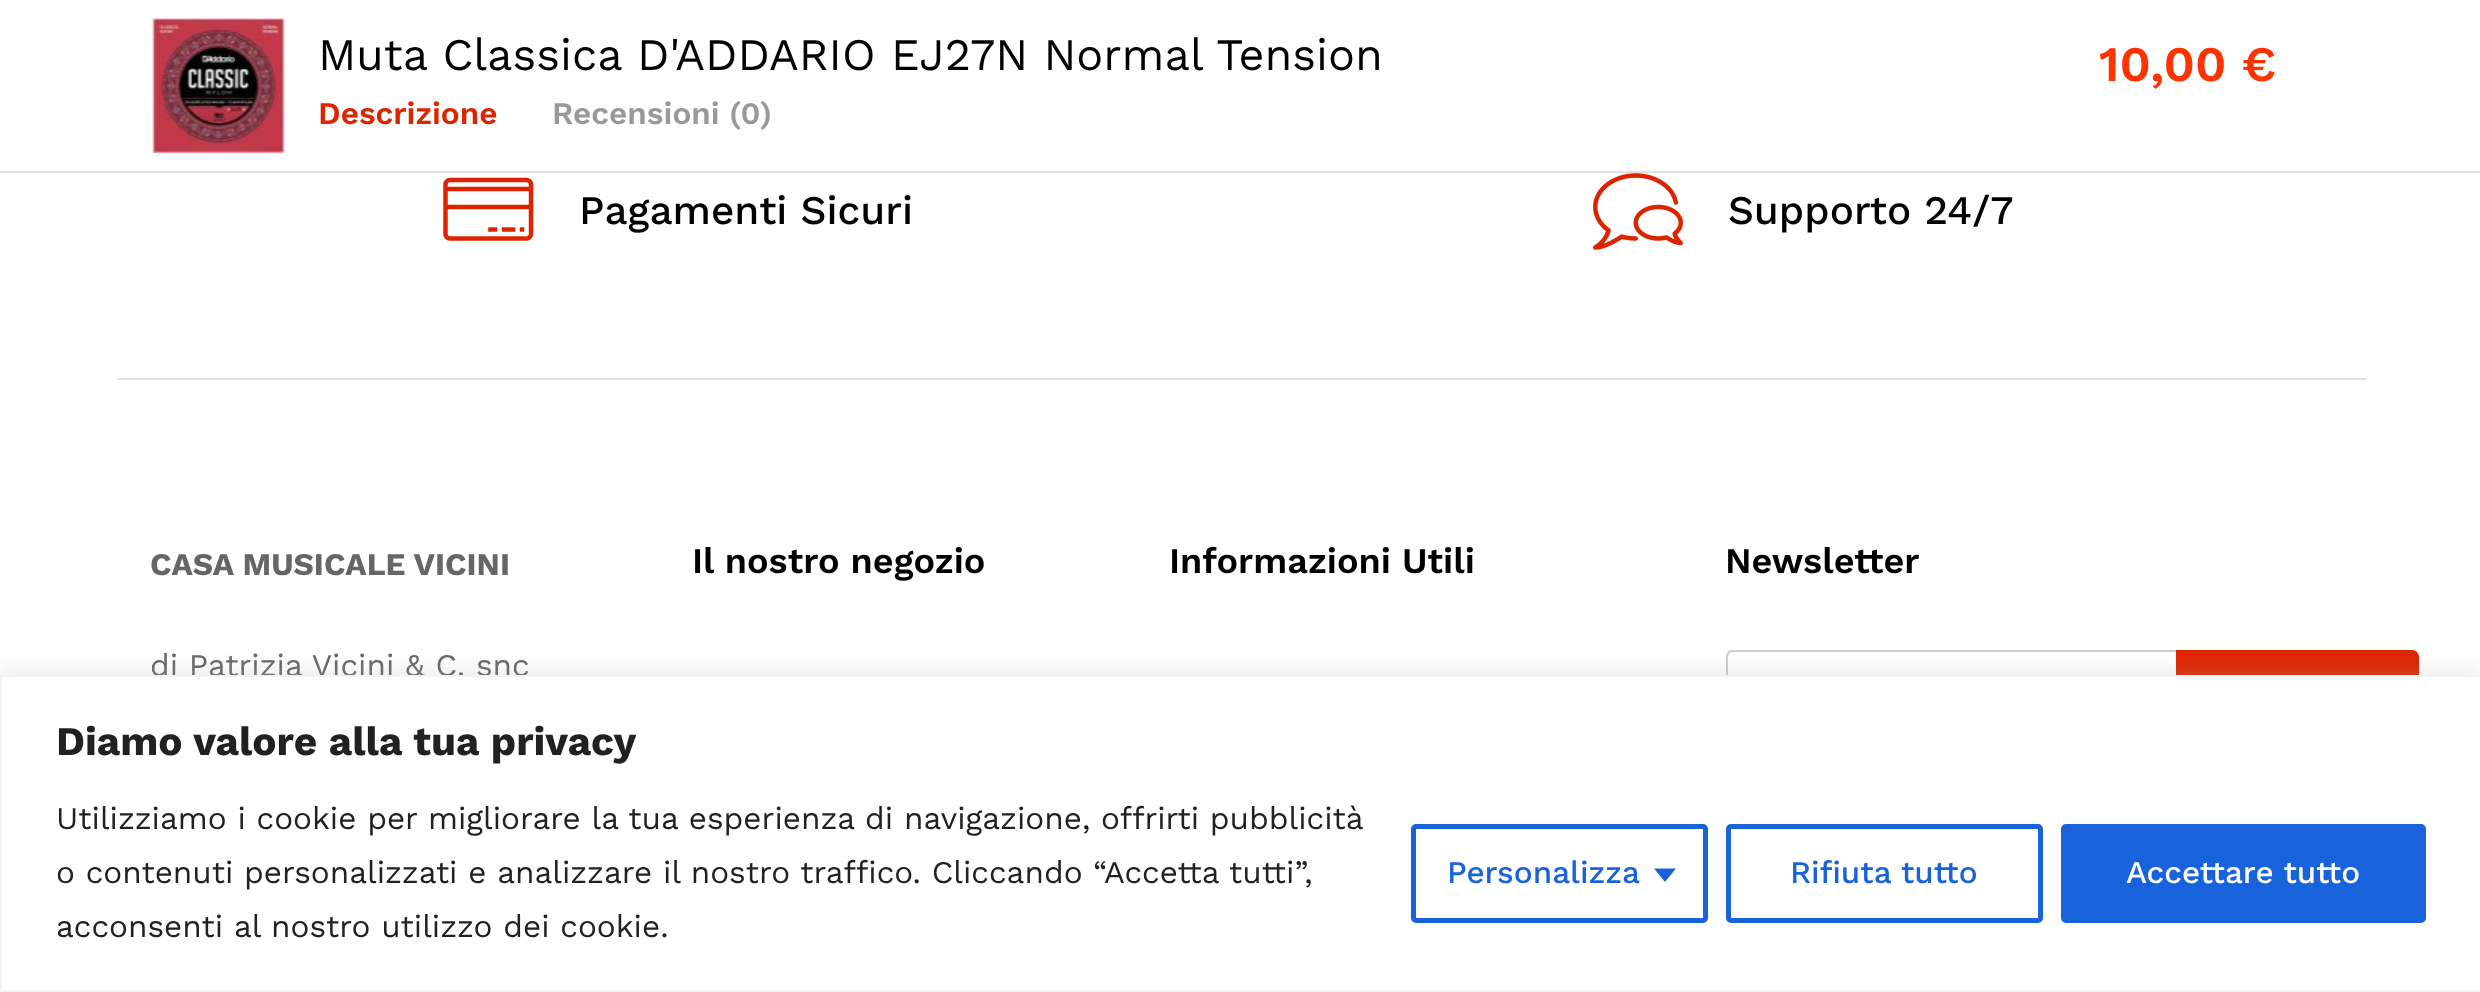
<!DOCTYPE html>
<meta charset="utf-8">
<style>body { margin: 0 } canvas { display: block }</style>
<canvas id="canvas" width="2480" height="992"></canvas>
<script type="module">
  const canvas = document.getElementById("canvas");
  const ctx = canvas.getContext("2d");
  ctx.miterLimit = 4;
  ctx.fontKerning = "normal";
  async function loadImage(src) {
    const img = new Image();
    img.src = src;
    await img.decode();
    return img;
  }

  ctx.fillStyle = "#ffffff";
  ctx.fillRect(0, 0, 2480, 992);
  ctx.fillStyle = "#e1e1e1";
  ctx.fillRect(0, 171, 2480, 2);
  ctx.drawImage(await loadImage("img1.png"), 150, 18, 136, 135);
  ctx.font = "45px Work Sans";
  ctx.fillStyle = "#000000";
  ctx.fillText("Muta Classica D'ADDARIO EJ27N Normal Tension", 318, 70);
  ctx.font = "600 31.5px Work Sans";
  ctx.fillStyle = "#dd2400";
  ctx.fillText("Descrizione", 318, 124);
  ctx.fillStyle = "#999999";
  ctx.fillText("Recensioni (0)", 552, 124);
  ctx.font = "600 49.5px Work Sans";
  ctx.fillStyle = "#ff3300";
  ctx.fillText("10,00 €", 2099, 81);
  ctx.fillStyle = "#e1e1e1";
  ctx.fillRect(117, 378, 2250, 2);
  ctx.drawImage(await loadImage("img2.png"), 443, 177, 91, 64);
  ctx.font = "500 40.5px Work Sans";
  ctx.fillStyle = "#000000";
  ctx.fillText("Pagamenti Sicuri", 579, 224);
  ctx.drawImage(await loadImage("img3.png"), 1593, 173, 90, 77);
  ctx.fillText("Supporto 24/7", 1728, 224);
  ctx.font = "bold 31.5px Work Sans";
  ctx.fillStyle = "#666666";
  ctx.fillText("CASA MUSICALE VICINI", 150, 575);
  ctx.font = "31.5px Work Sans";
  ctx.fillText("di Patrizia Vicini & C. snc", 150, 676);
  ctx.font = "600 36px Work Sans";
  ctx.fillStyle = "#000000";
  ctx.fillText("Il nostro negozio", 692, 573);
  ctx.fillText("Informazioni Utili", 1169, 573);
  ctx.fillText("Newsletter", 1725, 573);
  ctx.fillStyle = "#cccccc";
  ctx.beginPath();
  ctx.moveTo(1732, 650);
  ctx.lineTo(2176, 650);
  ctx.lineTo(2176, 758);
  ctx.lineTo(1732, 758);
  ctx.bezierCurveTo(1729, 758, 1726, 755, 1726, 752);
  ctx.lineTo(1726, 657);
  ctx.bezierCurveTo(1726, 653, 1729, 650, 1732, 650);
  ctx.closePath();
  ctx.moveTo(1732, 652);
  ctx.lineTo(2176, 652);
  ctx.lineTo(2176, 756);
  ctx.lineTo(1732, 756);
  ctx.bezierCurveTo(1730, 756, 1728, 754, 1728, 752);
  ctx.lineTo(1728, 657);
  ctx.bezierCurveTo(1728, 655, 1730, 652, 1732, 652);
  ctx.closePath();
  ctx.fill("evenodd");
  ctx.fillStyle = "#dd2400";
  ctx.beginPath();
  ctx.roundRect(2176, 650, 243, 108, [0, 7, 7, 0]);
  ctx.fill();
  ctx.fillStyle = "rgba(172, 171, 171, 0.3)";
  ctx.filter = "blur(11px)";
  ctx.beginPath();
  ctx.rect(0, 673, 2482, 317);
  ctx.fill();
  ctx.filter = "none";
  ctx.fillStyle = "#ffffff";
  ctx.beginPath();
  ctx.rect(1, 676, 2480, 315);
  ctx.fill();
  ctx.strokeStyle = "#f4f4f4";
  ctx.lineWidth = 2;
  ctx.stroke();
  ctx.font = "bold 40.5px Work Sans";
  ctx.fillStyle = "#212121";
  ctx.fillText("Diamo valore alla tua privacy", 56, 755);
  ctx.font = "31.5px Work Sans";
  ctx.fillText("Utilizziamo i cookie per migliorare la tua esperienza di navigazione, offrirti pubblicità", 56, 829);
  ctx.fillText("o contenuti personalizzati e analizzare il nostro traffico. Cliccando “Accetta tutti”,", 56, 883);
  ctx.fillText("acconsenti al nostro utilizzo dei cookie.", 56, 937);
  ctx.beginPath();
  ctx.roundRect(1413.5, 826.5, 292, 94, 2.5);
  ctx.strokeStyle = "#1863dc";
  ctx.lineWidth = 5;
  ctx.stroke();
  ctx.font = "500 31.5px Work Sans";
  ctx.fillStyle = "#1863dc";
  ctx.fillText("Personalizza", 1447, 883);
  ctx.beginPath();
  ctx.moveTo(1654, 868.5);
  ctx.lineTo(1676, 868.5);
  ctx.lineTo(1665, 882);
  ctx.closePath();
  ctx.fill();
  ctx.beginPath();
  ctx.roundRect(1728.5, 826.5, 312, 94, 2.5);
  ctx.stroke();
  ctx.fillText("Rifiuta tutto", 1790, 883);
  ctx.beginPath();
  ctx.roundRect(2063.5, 826.5, 360, 94, 2.5);
  ctx.fill();
  ctx.stroke();
  ctx.fillStyle = "#ffffff";
  ctx.fillText("Accettare tutto", 2126, 883);
</script>
